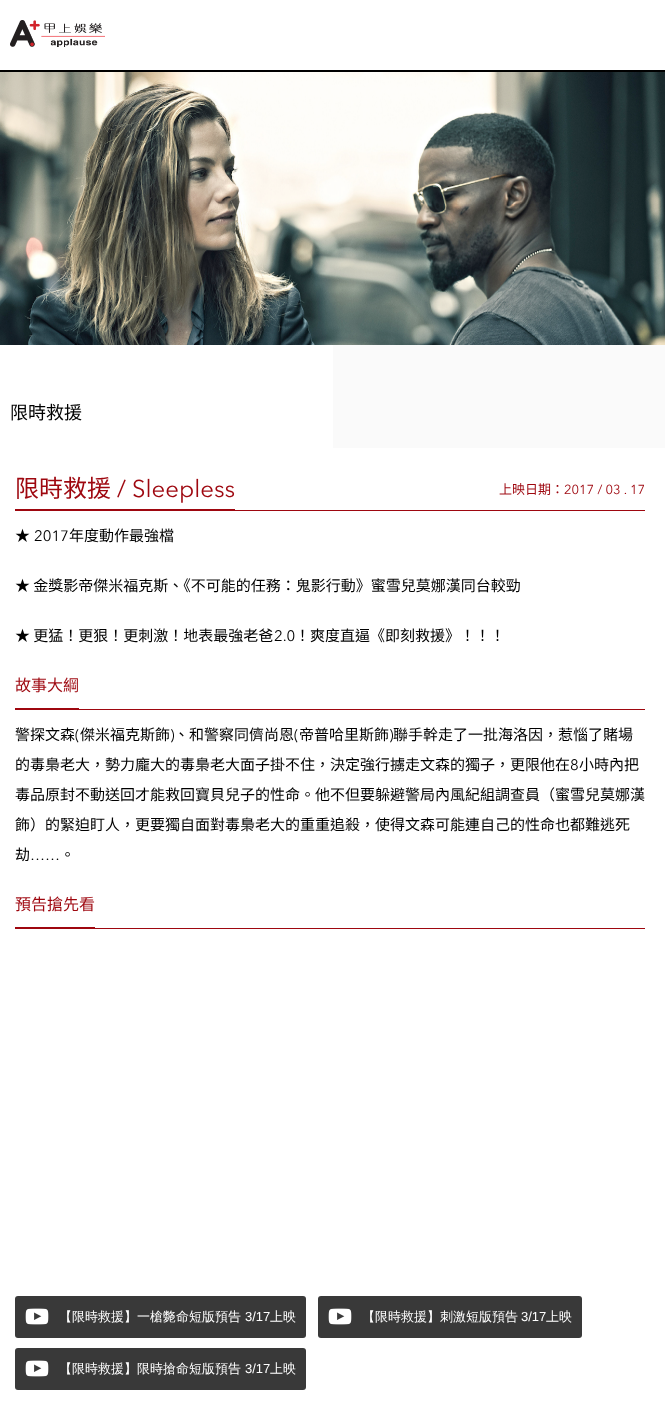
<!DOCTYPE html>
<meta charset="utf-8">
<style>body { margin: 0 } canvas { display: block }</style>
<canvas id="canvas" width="665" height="1419"></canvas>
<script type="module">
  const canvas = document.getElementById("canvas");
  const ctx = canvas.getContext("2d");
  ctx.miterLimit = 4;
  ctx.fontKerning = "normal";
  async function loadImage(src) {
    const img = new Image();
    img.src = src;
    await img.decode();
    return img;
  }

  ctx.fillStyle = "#ffffff";
  ctx.fillRect(0, 0, 665, 1419);
  ctx.fillStyle = "#000000";
  ctx.fillRect(0, 70, 665, 2);
  ctx.drawImage(await loadImage("img1.png"), 10, 20, 95, 27);
  ctx.fillStyle = "#fafafa";
  ctx.fillRect(333, 345, 332, 103);
  ctx.drawImage(await loadImage("img2.png"), 0, 72, 665, 273);
  ctx.font = "18px Noto Sans CJK TC";
  ctx.fillStyle = "#000000";
  ctx.fillText("限時救援", 10, 419);
  ctx.fillStyle = "#9e070f";
  ctx.fillRect(235, 510, 410, 1);
  ctx.font = "24px Noto Sans CJK TC";
  ctx.fillText("限時救援", 15, 497);
  ctx.font = "24px Avenir Next";
  ctx.fillText("/ Sleepless", 117, 497);
  ctx.fillRect(15, 509, 220, 2);
  ctx.font = "13px Noto Sans CJK TC";
  ctx.fillText("上映日期：", 499, 494);
  ctx.font = "13px Avenir Next";
  ctx.fillText("2017 / 03 . 17", 564, 494);
  ctx.font = "15px Noto Sans CJK TC";
  ctx.fillStyle = "#000000";
  ctx.fillText("★", 15, 541);
  ctx.font = "15px Avenir Next";
  ctx.fillText("2017", 34, 541);
  ctx.font = "15px Noto Sans CJK TC";
  ctx.fillText("年度動作最強檔", 69, 541);
  ctx.fillText("★ 金獎影帝傑米福克斯、《不可能的任務：鬼影行動》蜜雪兒莫娜漢同台較勁", 15, 591);
  ctx.fillText("★ 更猛！更狠！更刺激！地表最強老爸", 15, 641);
  ctx.font = "15px Avenir Next";
  ctx.fillText("2.0", 274, 641);
  ctx.font = "15px Noto Sans CJK TC";
  ctx.fillText("！爽度直逼《即刻救援》！！！", 295, 641);
  ctx.fillStyle = "#9e070f";
  ctx.fillRect(79, 709, 566, 1);
  ctx.font = "16px Noto Sans CJK TC";
  ctx.fillText("故事大綱", 15, 691);
  ctx.fillRect(15, 708, 64, 2);
  ctx.font = "15px Noto Sans CJK TC";
  ctx.fillStyle = "#000000";
  ctx.fillText("警探文森", 15, 740);
  ctx.font = "15px Avenir Next";
  ctx.fillText("(", 75, 740);
  ctx.font = "15px Noto Sans CJK TC";
  ctx.fillText("傑米福克斯飾", 80, 740);
  ctx.font = "15px Avenir Next";
  ctx.fillText(")", 170, 740);
  ctx.font = "15px Noto Sans CJK TC";
  ctx.fillText("、和警察同儕尚恩", 174, 740);
  ctx.font = "15px Avenir Next";
  ctx.fillText("(", 294, 740);
  ctx.font = "15px Noto Sans CJK TC";
  ctx.fillText("帝普哈里斯飾", 299, 740);
  ctx.font = "15px Avenir Next";
  ctx.fillText(")", 389, 740);
  ctx.font = "15px Noto Sans CJK TC";
  ctx.fillText("聯手幹走了一批海洛因，惹惱了賭場", 393, 740);
  ctx.fillText("的毒梟老大，勢力龐大的毒梟老大面子掛不住，決定強行擄走文森的獨子，更限他在", 15, 770);
  ctx.font = "15px Avenir Next";
  ctx.fillText("8", 570, 770);
  ctx.font = "15px Noto Sans CJK TC";
  ctx.fillText("小時內把", 579, 770);
  ctx.fillText("毒品原封不動送回才能救回寶貝兒子的性命。他不但要躲避警局內風紀組調查員（蜜雪兒莫娜漢", 15, 800);
  ctx.fillText("飾）的緊迫盯人，更要獨自面對毒梟老大的重重追殺，使得文森可能連自己的性命也都難逃死", 15, 830);
  ctx.fillText("劫", 15, 860);
  ctx.fillText("。", 60, 860);
  ctx.font = "15px Avenir Next";
  ctx.fillText("……", 30, 860);
  ctx.fillStyle = "#9e070f";
  ctx.fillRect(95, 928, 550, 1);
  ctx.font = "16px Noto Sans CJK TC";
  ctx.fillText("預告搶先看", 15, 910);
  ctx.fillRect(15, 927, 80, 2);
  ctx.fillStyle = "#393939";
  ctx.beginPath();
  ctx.roundRect(15, 1296, 291, 42, 3);
  ctx.fill();
  ctx.drawImage(await loadImage("img3.png"), 25, 1308, 24, 17);
  ctx.font = "500 13px WenQuanYi Zen Hei";
  ctx.fillStyle = "#ffffff";
  ctx.fillText("【限時救援】一槍斃命短版預告", 59, 1321);
  ctx.font = "13px Liberation Sans";
  ctx.fillText("3/17", 245, 1321);
  ctx.font = "500 13px WenQuanYi Zen Hei";
  ctx.fillText("上映", 270, 1321);
  ctx.fillStyle = "#393939";
  ctx.beginPath();
  ctx.roundRect(318, 1296, 264, 42, 3);
  ctx.fill();
  ctx.drawImage(await loadImage("img3.png"), 328, 1308, 24, 17);
  ctx.fillStyle = "#ffffff";
  ctx.fillText("【限時救援】刺激短版預告", 362, 1321);
  ctx.font = "13px Liberation Sans";
  ctx.fillText("3/17", 521, 1321);
  ctx.font = "500 13px WenQuanYi Zen Hei";
  ctx.fillText("上映", 546, 1321);
  ctx.fillStyle = "#393939";
  ctx.beginPath();
  ctx.roundRect(15, 1348, 291, 42, 3);
  ctx.fill();
  ctx.drawImage(await loadImage("img3.png"), 25, 1360, 24, 17);
  ctx.fillStyle = "#ffffff";
  ctx.fillText("【限時救援】限時搶命短版預告", 59, 1373);
  ctx.font = "13px Liberation Sans";
  ctx.fillText("3/17", 245, 1373);
  ctx.font = "500 13px WenQuanYi Zen Hei";
  ctx.fillText("上映", 270, 1373);
</script>
